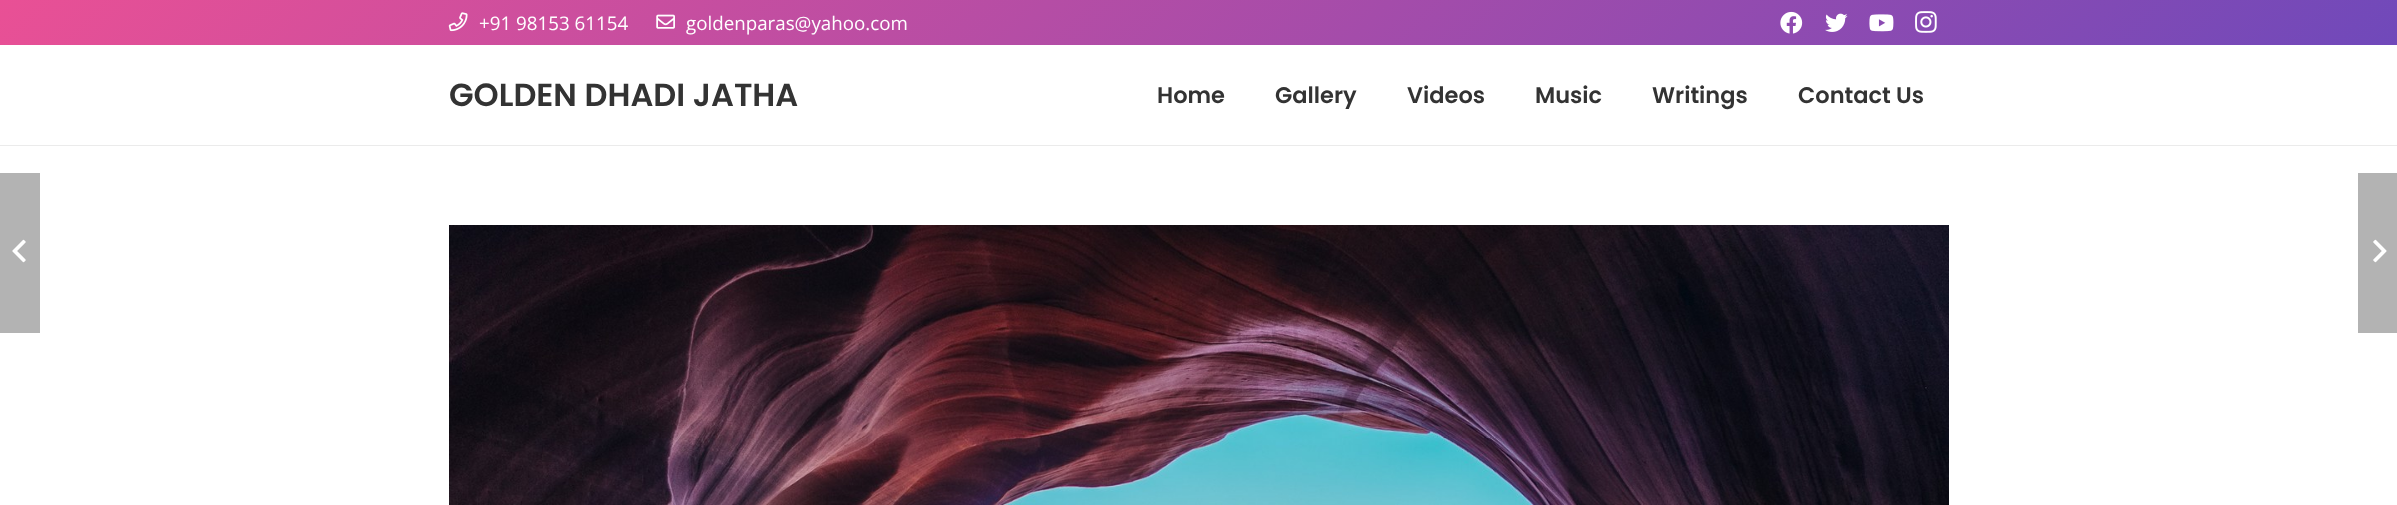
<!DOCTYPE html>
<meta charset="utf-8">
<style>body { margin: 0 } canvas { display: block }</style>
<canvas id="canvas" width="2397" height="505"></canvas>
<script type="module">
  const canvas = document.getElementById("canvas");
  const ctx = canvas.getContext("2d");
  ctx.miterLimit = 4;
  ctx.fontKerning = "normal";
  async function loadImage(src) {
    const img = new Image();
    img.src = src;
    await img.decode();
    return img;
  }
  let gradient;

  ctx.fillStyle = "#ffffff";
  ctx.fillRect(0, 0, 2397, 505);
  gradient = ctx.createLinearGradient(588, -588, 1809, 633);
  gradient.addColorStop(0, "#e95095");
  gradient.addColorStop(1, "#7049ba");
  ctx.fillStyle = gradient;
  ctx.fillRect(0, 0, 2397, 45);
  ctx.drawImage(await loadImage("img1.png"), 448, 12, 20, 20);
  ctx.font = "18.75px Open Sans";
  ctx.fillStyle = "#ffffff";
  ctx.fillText("+91 98153 61154", 479, 30);
  ctx.drawImage(await loadImage("img2.png"), 656, 14, 19, 15);
  ctx.fillText("goldenparas@yahoo.com", 686, 30);
  ctx.drawImage(await loadImage("img3.png"), 1780, 11, 23, 23);
  ctx.drawImage(await loadImage("img4.png"), 1825, 13, 23, 19);
  ctx.drawImage(await loadImage("img5.png"), 1869, 14, 25, 18);
  ctx.drawImage(await loadImage("img6.png"), 1915, 11, 22, 22);
  ctx.fillStyle = "#ebebeb";
  ctx.beginPath();
  ctx.moveTo(0, 145);
  ctx.lineTo(0, 146);
  ctx.lineTo(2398, 146);
  ctx.lineTo(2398, 46);
  ctx.lineTo(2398, 145);
  ctx.closePath();
  ctx.fill();
  ctx.font = "600 32px Poppins";
  ctx.fillStyle = "#333333";
  ctx.fillText("GOLDEN DHADI JATHA", 449, 106);
  ctx.font = "600 22.5px Poppins";
  ctx.fillText("Home", 1157, 103);
  ctx.fillText("Gallery", 1275, 103);
  ctx.fillText("Videos", 1407, 103);
  ctx.fillText("Music", 1535, 103);
  ctx.fillText("Writings", 1652, 103);
  ctx.fillText("Contact Us", 1798, 103);
  ctx.fillStyle = "#b3b3b3";
  ctx.fillRect(0, 173, 40, 160);
  ctx.drawImage(await loadImage("img7.png"), 12, 239, 14, 24);
  ctx.fillRect(2358, 173, 39, 160);
  ctx.drawImage(await loadImage("img8.png"), 2373, 239, 14, 24);
  ctx.drawImage(await loadImage("img9.png"), 449, 225, 1500, 280);
</script>
